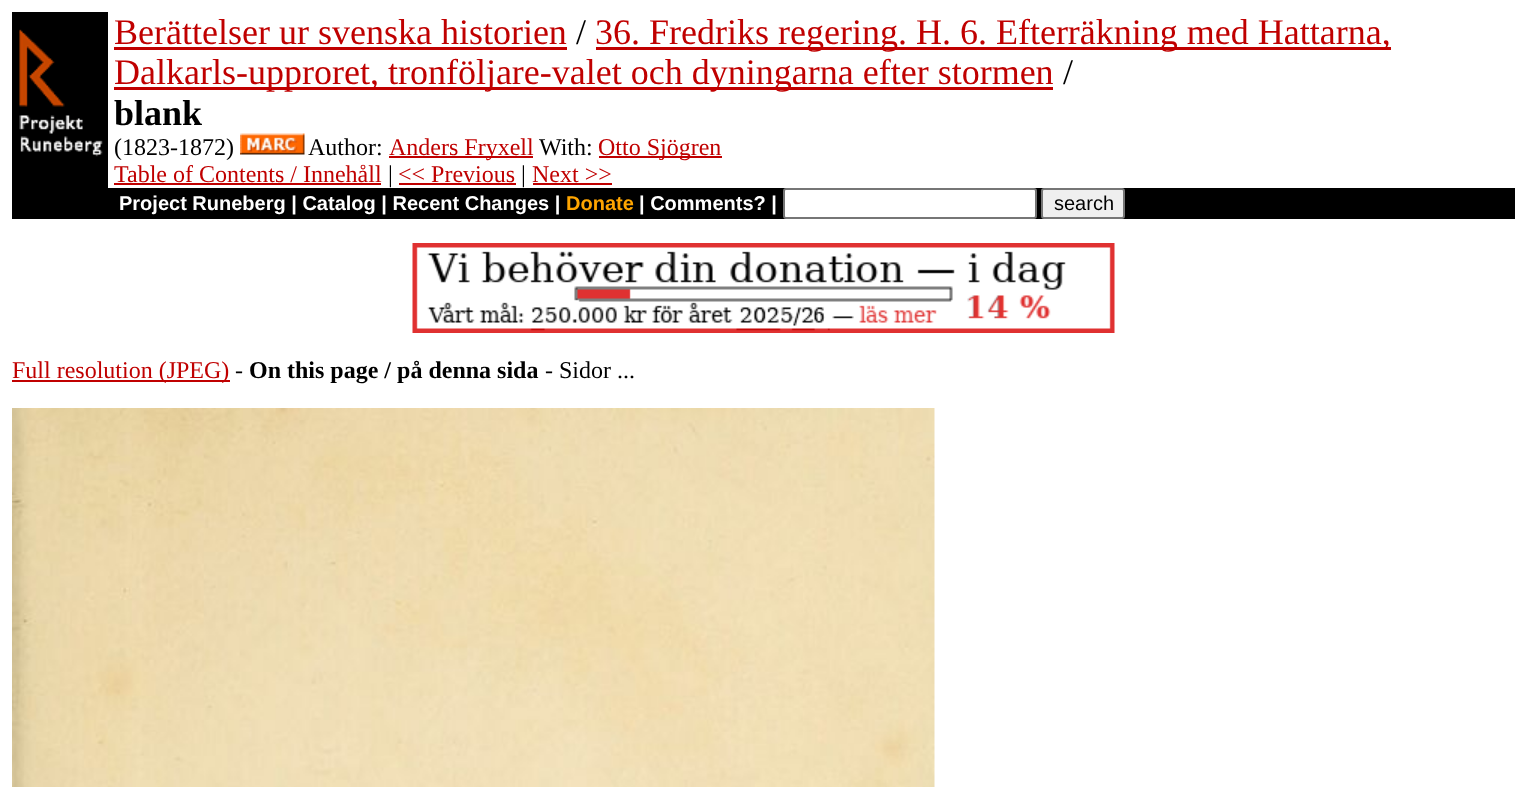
<!DOCTYPE html>
<meta charset="utf-8">
<style>body { margin: 0 } canvas { display: block }</style>
<canvas id="canvas" width="1526" height="787"></canvas>
<script type="module">
  const canvas = document.getElementById("canvas");
  const ctx = canvas.getContext("2d");
  ctx.miterLimit = 4;
  ctx.fontKerning = "normal";
  async function loadImage(src) {
    const img = new Image();
    img.src = src;
    await img.decode();
    return img;
  }

  ctx.fillStyle = "#ffffff";
  ctx.fillRect(0, 0, 1526, 787);
  ctx.fillStyle = "#000000";
  ctx.fillRect(12, 12, 96, 207);
  ctx.drawImage(await loadImage("img1.png"), 19, 29, 84, 128);
  ctx.font = "36px Liberation Serif";
  ctx.fillStyle = "#c00000";
  ctx.fillText("Berättelser ur svenska historien", 114, 44);
  ctx.fillRect(114, 47, 453, 3);
  ctx.fillStyle = "#000000";
  ctx.fillText("/", 576, 44);
  ctx.fillStyle = "#c00000";
  ctx.fillRect(596, 47, 795, 3);
  ctx.fillText("36. Fredriks regering. H. 6. Efterräkning med Hattarna,", 595, 44);
  ctx.fillRect(114, 87, 939, 3);
  ctx.fillText("Dalkarls-upproret, tronföljare-valet och dyningarna efter stormen", 114, 84);
  ctx.fillStyle = "#000000";
  ctx.fillText("/", 1063, 84);
  ctx.font = "bold 36px Liberation Serif";
  ctx.fillText("blank", 114, 125);
  ctx.font = "24px Liberation Serif";
  ctx.fillText("(1823-1872)", 114, 155);
  ctx.drawImage(await loadImage("img2.png"), 240, 133, 65, 22);
  ctx.fillText("Author:", 308, 155);
  ctx.fillStyle = "#c00000";
  ctx.fillRect(389, 156, 144, 2);
  ctx.fillText("Anders Fryxell", 389, 155);
  ctx.fillStyle = "#000000";
  ctx.fillText("With:", 539, 155);
  ctx.fillStyle = "#c00000";
  ctx.fillRect(599, 156, 123, 2);
  ctx.fillText("Otto Sjögren", 598, 155);
  ctx.fillText("Table of Contents / Innehåll", 114, 182);
  ctx.fillRect(114, 183, 267, 2);
  ctx.fillStyle = "#000000";
  ctx.fillText("|", 388, 182);
  ctx.fillStyle = "#c00000";
  ctx.fillText("<< Previous", 398, 182);
  ctx.fillRect(399, 183, 117, 2);
  ctx.fillStyle = "#000000";
  ctx.fillText("|", 521, 182);
  ctx.fillStyle = "#c00000";
  ctx.fillText("Next >>", 532, 182);
  ctx.fillRect(533, 183, 79, 2);
  ctx.fillStyle = "#000000";
  ctx.fillRect(108, 188, 1407, 31);
  ctx.font = "bold 20px Liberation Sans";
  ctx.fillStyle = "#ffffff";
  ctx.fillText("Project Runeberg | Catalog | Recent Changes |", 119, 210);
  ctx.fillStyle = "#ffa500";
  ctx.fillText("Donate", 566, 210);
  ctx.fillStyle = "#ffffff";
  ctx.fillText("| Comments? |", 639, 210);
  ctx.beginPath();
  ctx.roundRect(784, 189, 252, 29, 2);
  ctx.fill();
  ctx.strokeStyle = "#767676";
  ctx.lineWidth = 2;
  ctx.stroke();
  ctx.fillStyle = "#efefef";
  ctx.beginPath();
  ctx.roundRect(1042, 189, 82, 29, 2);
  ctx.fill();
  ctx.stroke();
  ctx.font = "20px Liberation Sans";
  ctx.fillStyle = "#000000";
  ctx.fillText("search", 1054, 210);
  ctx.drawImage(await loadImage("img3.png"), 412, 243, 703, 90);
  ctx.fillStyle = "#c00000";
  ctx.fillRect(12, 380, 218, 2);
  ctx.font = "24px Liberation Serif";
  ctx.fillText("Full resolution (JPEG)", 12, 378);
  ctx.fillStyle = "#000000";
  ctx.fillText("-", 235, 378);
  ctx.font = "bold 24px Liberation Serif";
  ctx.fillText("On this page / på denna sida", 249, 378);
  ctx.font = "24px Liberation Serif";
  ctx.fillText("- Sidor ...", 545, 378);
  ctx.drawImage(await loadImage("img4.png"), 12, 408, 923, 379);
</script>
